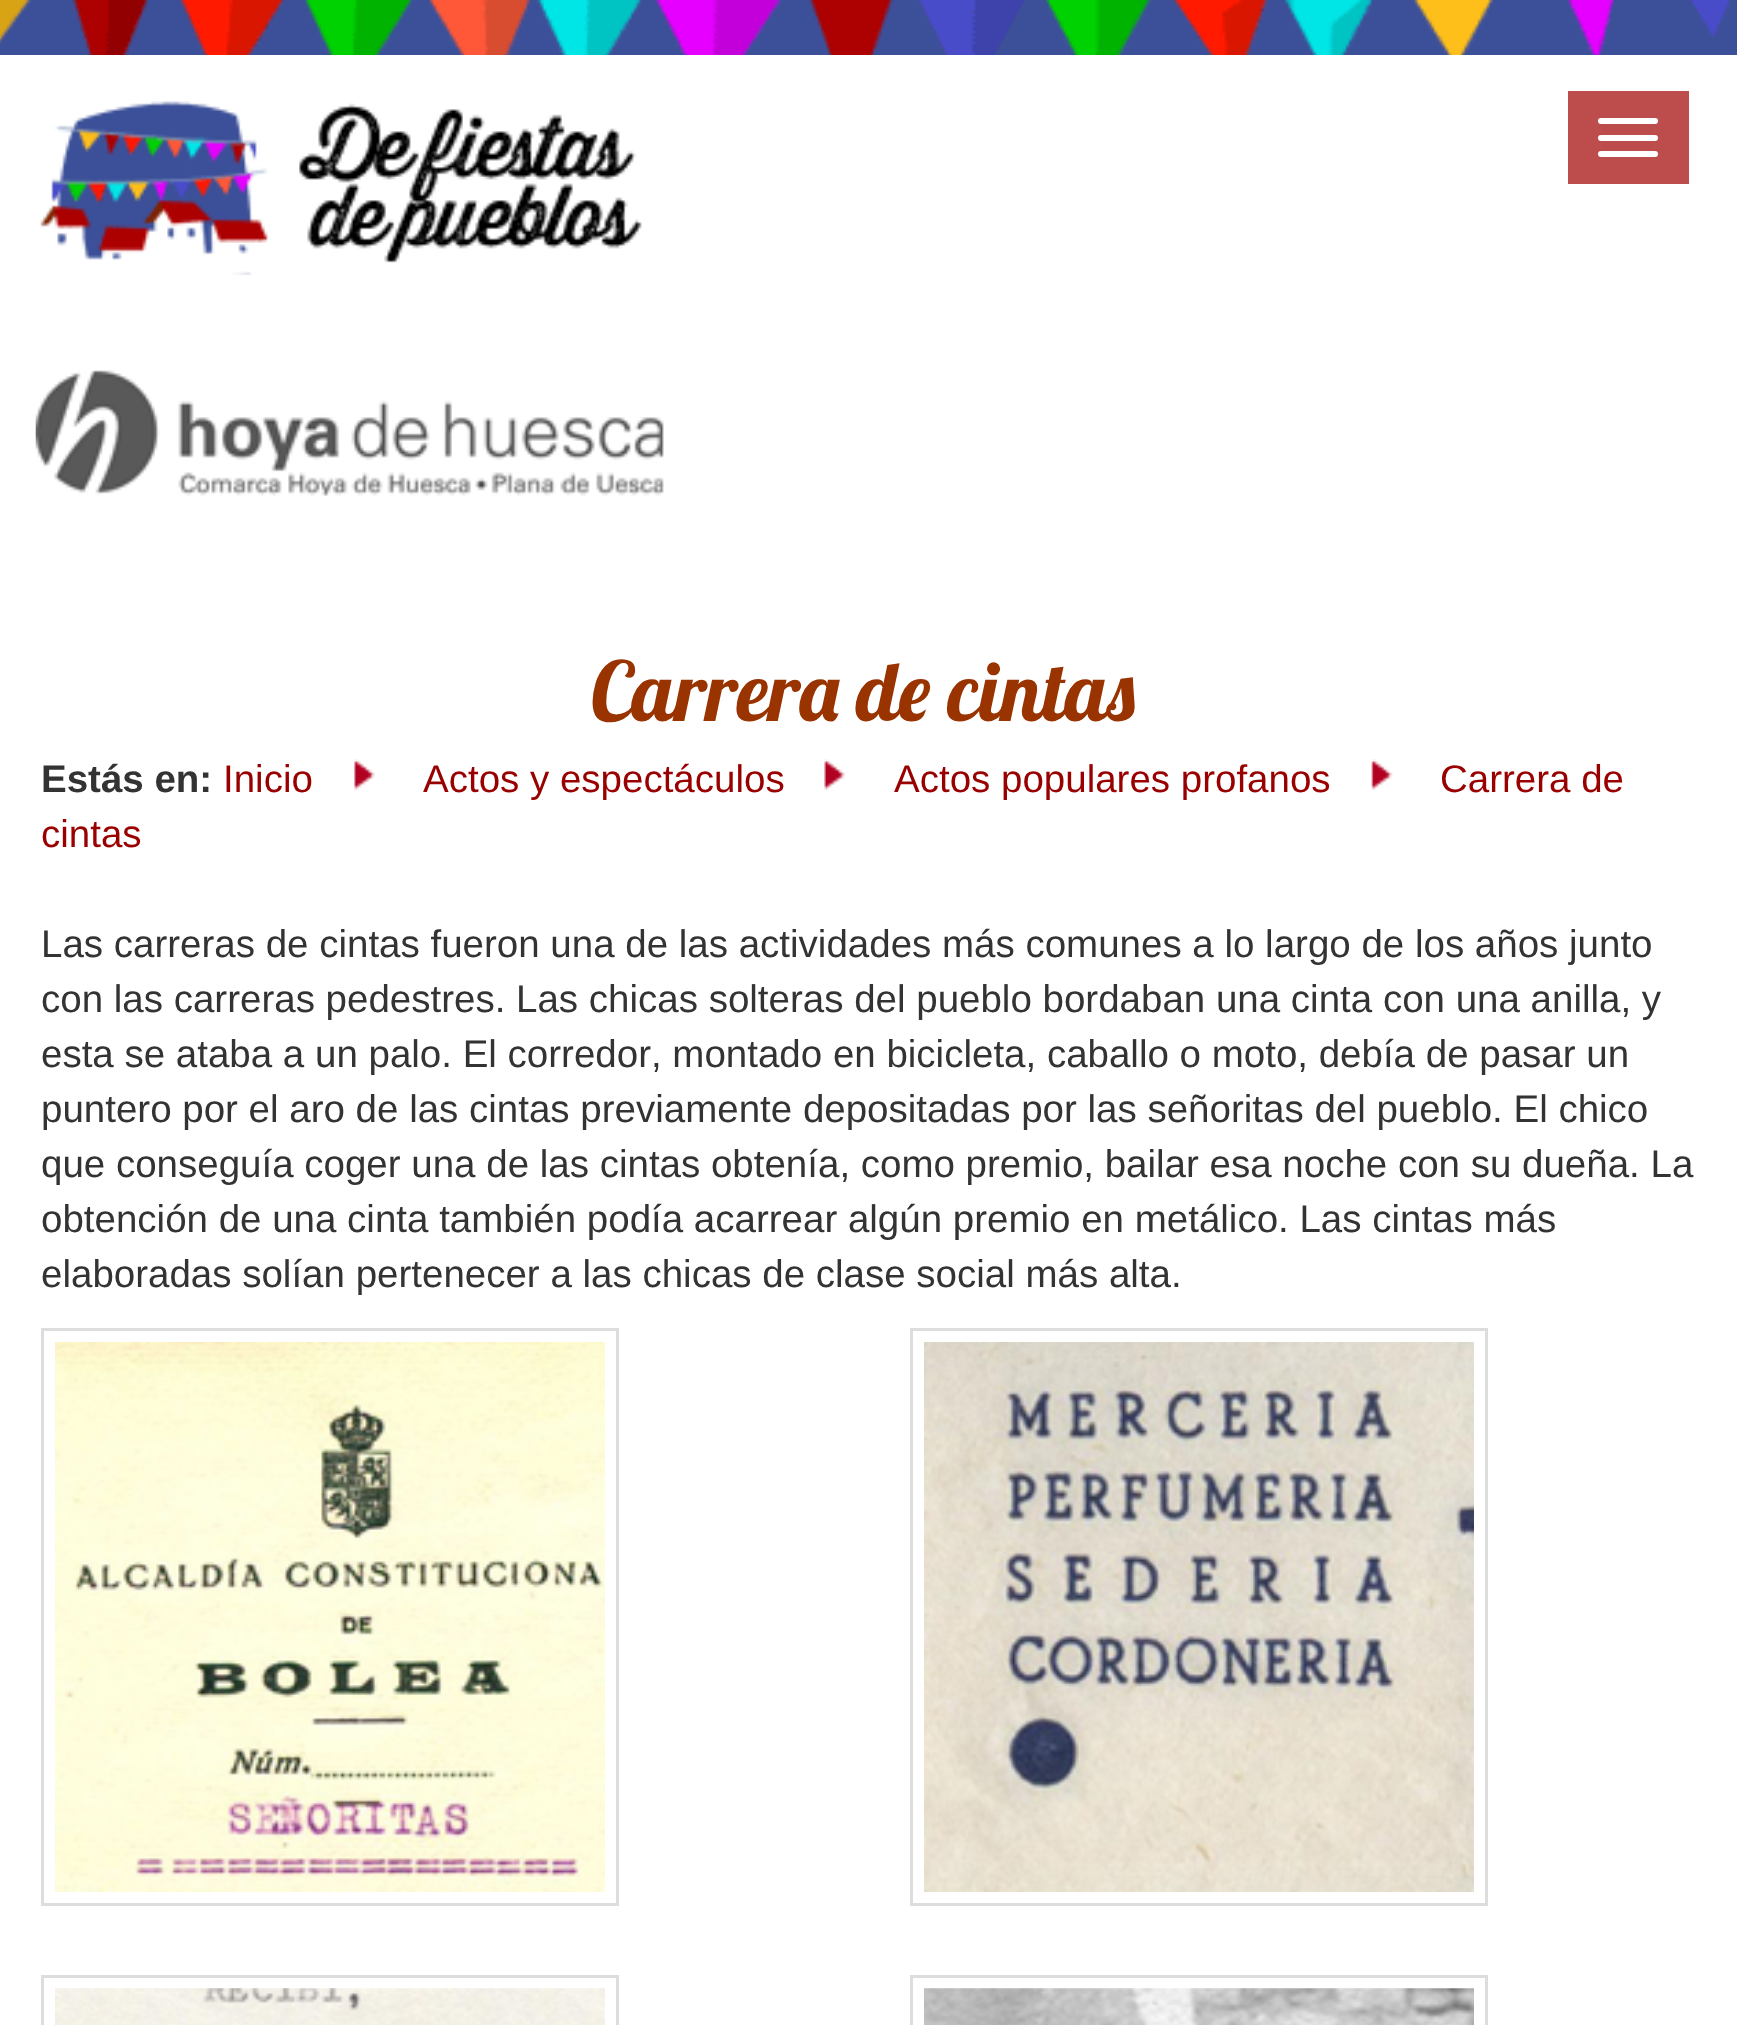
<!DOCTYPE html>
<meta charset="utf-8">
<style>body { margin: 0 } canvas { display: block }</style>
<canvas id="canvas" width="1737" height="2025"></canvas>
<script type="module">
  const canvas = document.getElementById("canvas");
  const ctx = canvas.getContext("2d");
  ctx.miterLimit = 4;
  ctx.fontKerning = "none";
  async function loadImage(src) {
    const img = new Image();
    img.src = src;
    await img.decode();
    return img;
  }

  ctx.fillStyle = "#ffffff";
  ctx.fillRect(0, 0, 1737, 2025);
  ctx.drawImage(await loadImage("img1.png"), 0, 0, 1737, 55);
  ctx.drawImage(await loadImage("img2.png"), 40, 101, 602, 174);
  ctx.drawImage(await loadImage("img3.png"), 35, 370, 629, 126);
  ctx.fillStyle = "#bd4d4d";
  ctx.fillRect(1568, 91, 121, 93);
  ctx.fillStyle = "#ffffff";
  ctx.beginPath();
  ctx.roundRect(1598, 118, 60, 6, 3);
  ctx.fill();
  ctx.beginPath();
  ctx.roundRect(1598, 135, 60, 6, 3);
  ctx.fill();
  ctx.beginPath();
  ctx.roundRect(1598, 151, 60, 6, 3);
  ctx.fill();
  ctx.font = "82.5px Lobster";
  ctx.fillStyle = "#993300";
  ctx.fillText("Carrera de cintas", 591, 721);
  ctx.font = "bold 38.5px Liberation Sans";
  ctx.fillStyle = "#333333";
  ctx.fillText("Estás en:", 41, 792);
  ctx.font = "38.5px Liberation Sans";
  ctx.fillStyle = "#990000";
  ctx.fillText("Inicio", 223, 792);
  ctx.drawImage(await loadImage("img4.png"), 354, 759, 21, 32);
  ctx.fillText("Actos y espectáculos", 423, 792);
  ctx.drawImage(await loadImage("img5.png"), 824, 759, 22, 32);
  ctx.fillText("Actos populares profanos", 894, 792);
  ctx.drawImage(await loadImage("img6.png"), 1371, 759, 22, 32);
  ctx.fillText("Carrera de", 1440, 792);
  ctx.fillText("cintas", 41, 847);
  ctx.fillStyle = "#333333";
  ctx.fillText("Las carreras de cintas fueron una de las actividades más comunes a lo largo de los años junto", 41, 957);
  ctx.fillText("con las carreras pedestres. Las chicas solteras del pueblo bordaban una cinta con una anilla, y", 41, 1012);
  ctx.fillText("esta se ataba a un palo. El corredor, montado en bicicleta, caballo o moto, debía de pasar un", 41, 1067);
  ctx.fillText("puntero por el aro de las cintas previamente depositadas por las señoritas del pueblo. El chico", 41, 1122);
  ctx.fillText("que conseguía coger una de las cintas obtenía, como premio, bailar esa noche con su dueña. La", 41, 1177);
  ctx.fillText("obtención de una cinta también podía acarrear algún premio en metálico. Las cintas más", 41, 1232);
  ctx.fillText("elaboradas solían pertenecer a las chicas de clase social más alta.", 41, 1287);
  ctx.strokeStyle = "#dddddd";
  ctx.lineWidth = 3;
  ctx.strokeRect(42.5, 1329.5, 575, 575);
  ctx.drawImage(await loadImage("img7.png"), 55, 1342, 550, 550);
  ctx.strokeRect(911.5, 1329.5, 575, 575);
  ctx.drawImage(await loadImage("img8.png"), 924, 1342, 550, 550);
  ctx.strokeRect(42.5, 1976.5, 575, 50);
  ctx.drawImage(await loadImage("img9.png"), 55, 1988, 550, 37);
  ctx.strokeRect(911.5, 1976.5, 575, 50);
  ctx.drawImage(await loadImage("img10.png"), 924, 1988, 550, 37);
</script>
